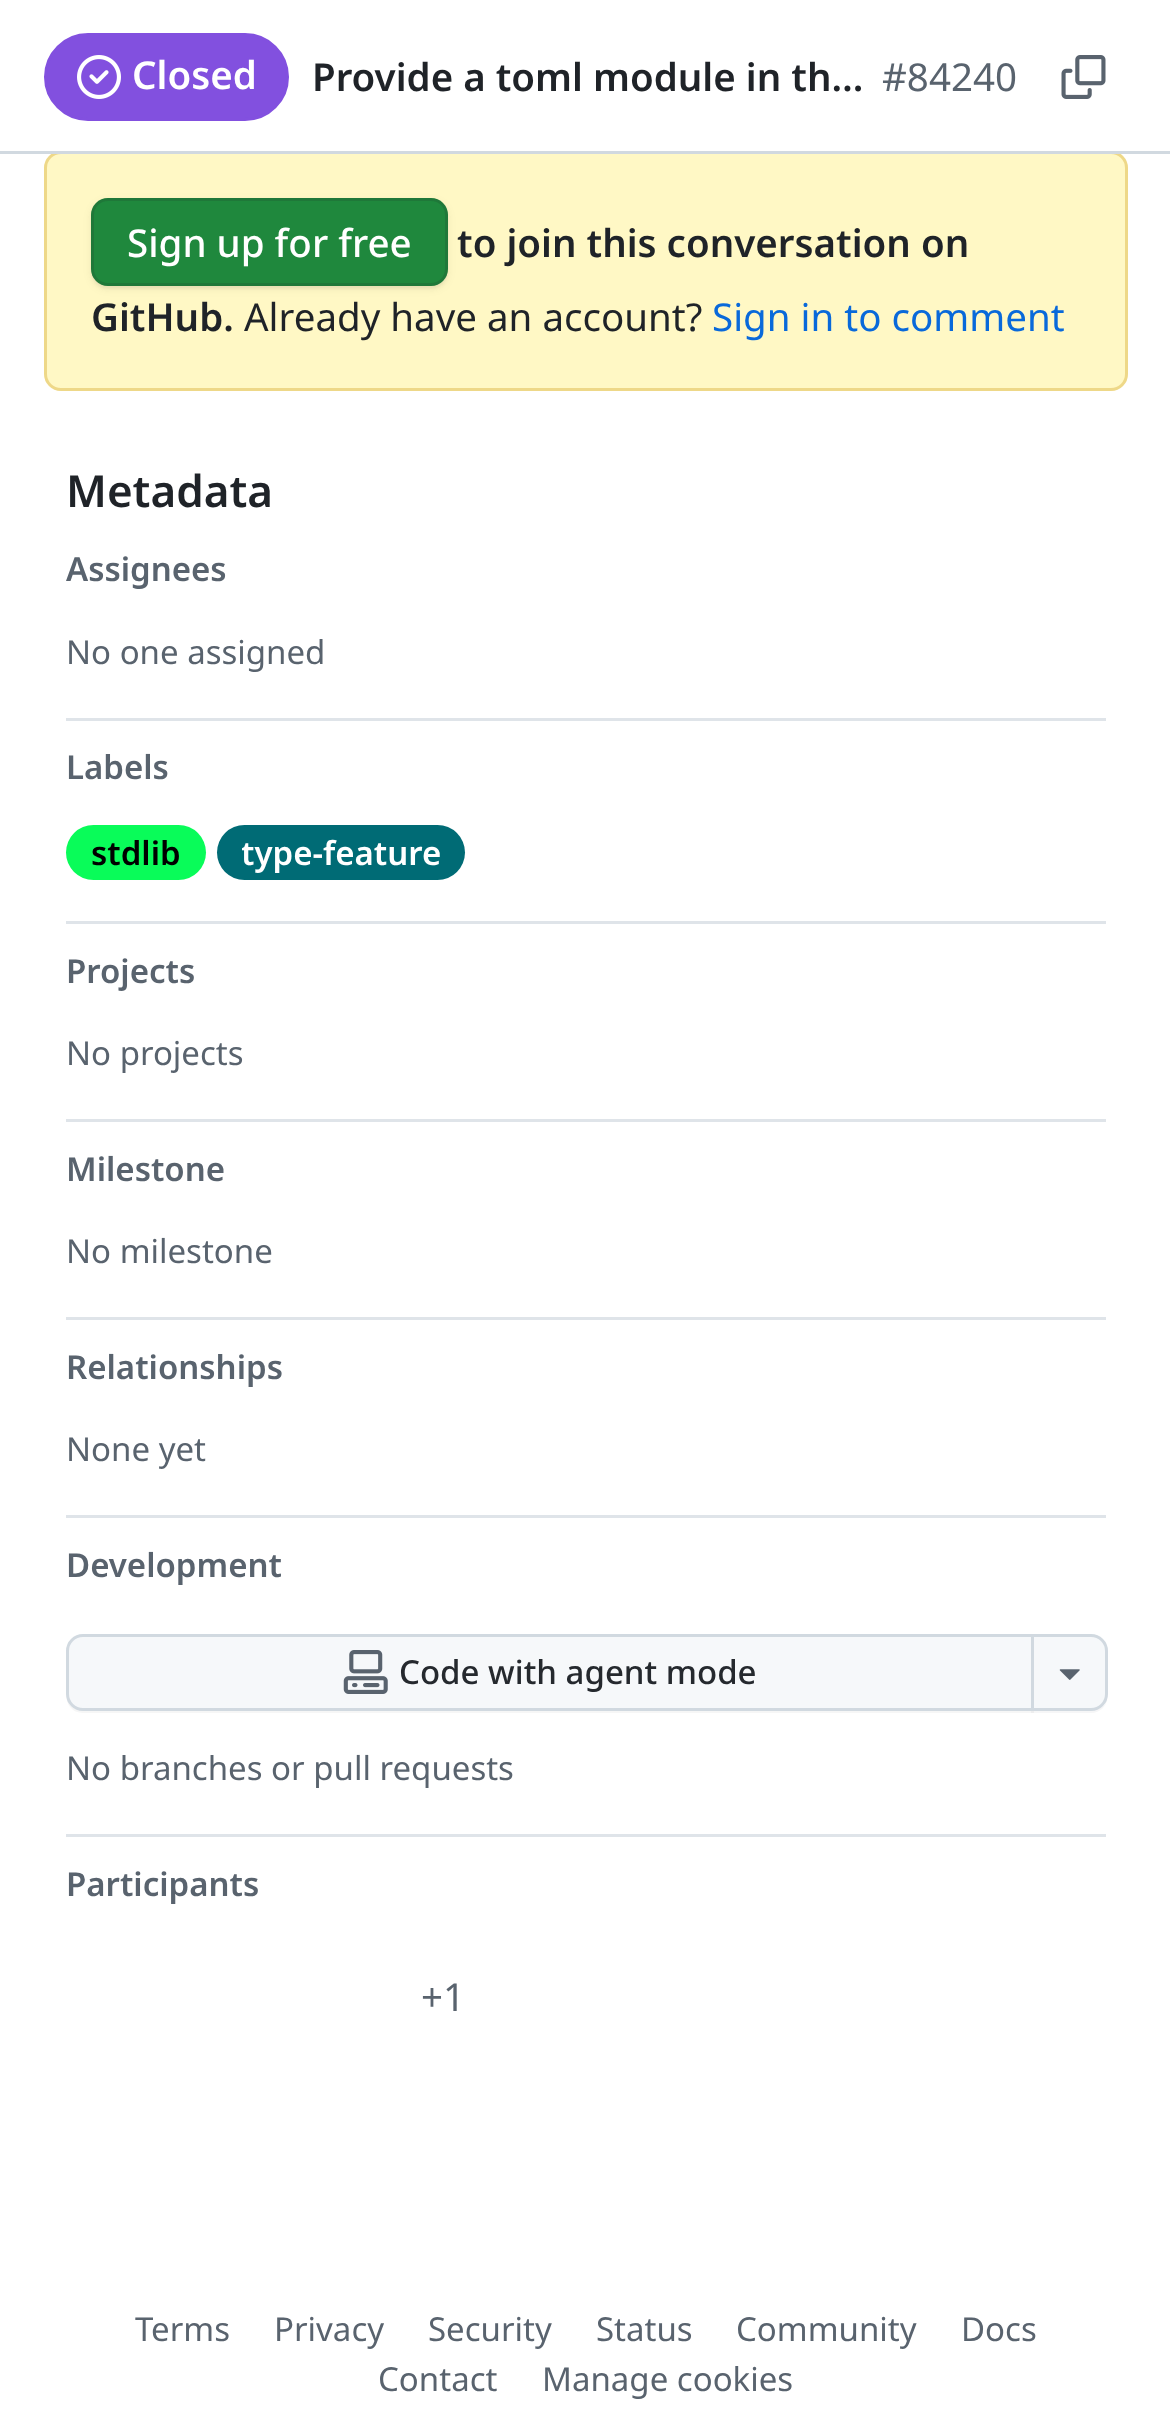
<!DOCTYPE html>
<meta charset="utf-8">
<style>body { margin: 0 } canvas { display: block }</style>
<canvas id="canvas" width="1170" height="2413"></canvas>
<script type="module">
  const canvas = document.getElementById("canvas");
  const ctx = canvas.getContext("2d");
  ctx.miterLimit = 4;
  ctx.fontKerning = "normal";
  async function loadImage(src) {
    const img = new Image();
    img.src = src;
    await img.decode();
    return img;
  }

  ctx.fillStyle = "#ffffff";
  ctx.fillRect(0, 0, 1170, 2413);
  ctx.fillStyle = "#fff8c5";
  ctx.beginPath();
  ctx.roundRect(44, 151, 1084, 240, 17);
  ctx.fill();
  ctx.beginPath();
  ctx.roundRect(45.5, 152.5, 1081, 237, 15.5);
  ctx.strokeStyle = "rgba(212, 167, 44, 0.4)";
  ctx.lineWidth = 3;
  ctx.stroke();
  ctx.fillStyle = "#d1d9e0";
  ctx.fillRect(0, 151, 1170, 3);
  ctx.fillStyle = "#8250df";
  ctx.beginPath();
  ctx.roundRect(45.5, 34.5, 242, 85, 42.5);
  ctx.fill();
  ctx.strokeStyle = "#8250df";
  ctx.stroke();
  ctx.drawImage(await loadImage("img1.png"), 77, 55, 44, 44);
  ctx.font = "600 38.5px Noto Sans";
  ctx.fillStyle = "#ffffff";
  ctx.fillText("Closed", 132, 89);
  ctx.fillStyle = "#1f2328";
  ctx.fillText("Provide a toml module in th…", 312, 91);
  ctx.font = "38.5px Noto Sans";
  ctx.fillStyle = "#59636e";
  ctx.fillText("#84240", 882, 91);
  ctx.drawImage(await loadImage("img2.png"), 1061, 55, 45, 44);
  ctx.fillStyle = "rgba(31, 35, 40, 0.06)";
  ctx.filter = "blur(4px)";
  ctx.beginPath();
  ctx.roundRect(91, 201, 357, 88, 17);
  ctx.fill();
  ctx.filter = "none";
  ctx.filter = "blur(1.5px)";
  ctx.beginPath();
  ctx.roundRect(91, 201, 357, 88, 17);
  ctx.fill();
  ctx.filter = "none";
  ctx.fillStyle = "#1f883d";
  ctx.beginPath();
  ctx.roundRect(91, 198, 357, 88, 17);
  ctx.fill();
  ctx.beginPath();
  ctx.roundRect(92.5, 199.5, 354, 85, 15.5);
  ctx.strokeStyle = "rgba(31, 35, 40, 0.15)";
  ctx.stroke();
  ctx.font = "500 38.5px Noto Sans";
  ctx.fillStyle = "#ffffff";
  ctx.fillText("Sign up for free", 127, 257);
  ctx.font = "600 38.5px Noto Sans";
  ctx.fillStyle = "#1f2328";
  ctx.fillText("to join this conversation on", 457, 257);
  ctx.fillText("GitHub.", 91, 331);
  ctx.font = "38.5px Noto Sans";
  ctx.fillText("Already have an account?", 244, 331);
  ctx.fillStyle = "#0969da";
  ctx.fillText("Sign in to comment", 712, 331);
  ctx.font = "600 44px Noto Sans";
  ctx.fillStyle = "#1f2328";
  ctx.fillText("Metadata", 66, 507);
  ctx.font = "600 33px Noto Sans";
  ctx.fillStyle = "#59636e";
  ctx.fillText("Assignees", 66, 581);
  ctx.font = "33px Noto Sans";
  ctx.fillText("No one assigned", 66, 664);
  ctx.fillStyle = "#dfe4e9";
  ctx.fillRect(66, 718, 1040, 3);
  ctx.font = "600 33px Noto Sans";
  ctx.fillStyle = "#59636e";
  ctx.fillText("Labels", 66, 779);
  ctx.fillStyle = "#09fc59";
  ctx.beginPath();
  ctx.roundRect(66, 825, 140, 55, 27.5);
  ctx.fill();
  ctx.fillStyle = "#000000";
  ctx.fillText("stdlib", 91, 865);
  ctx.fillStyle = "#006b75";
  ctx.beginPath();
  ctx.roundRect(217, 825, 248, 55, 27.5);
  ctx.fill();
  ctx.save();
  ctx.beginPath();
  ctx.rect(242, 825, 198, 55);
  ctx.clip();
  ctx.fillStyle = "#ffffff";
  ctx.fillText("type-feature", 241, 865);
  ctx.restore();
  ctx.fillStyle = "#dfe4e9";
  ctx.fillRect(66, 921, 1040, 3);
  ctx.fillStyle = "#59636e";
  ctx.fillText("Projects", 66, 983);
  ctx.font = "33px Noto Sans";
  ctx.fillText("No projects", 66, 1065);
  ctx.fillStyle = "#dfe4e9";
  ctx.fillRect(66, 1119, 1040, 3);
  ctx.font = "600 33px Noto Sans";
  ctx.fillStyle = "#59636e";
  ctx.fillText("Milestone", 66, 1181);
  ctx.font = "33px Noto Sans";
  ctx.fillText("No milestone", 66, 1263);
  ctx.fillStyle = "#dfe4e9";
  ctx.fillRect(66, 1317, 1040, 3);
  ctx.font = "600 33px Noto Sans";
  ctx.fillStyle = "#59636e";
  ctx.fillText("Relationships", 66, 1379);
  ctx.font = "33px Noto Sans";
  ctx.fillText("None yet", 66, 1461);
  ctx.fillStyle = "#dfe4e9";
  ctx.fillRect(66, 1515, 1040, 3);
  ctx.font = "600 33px Noto Sans";
  ctx.fillStyle = "#59636e";
  ctx.fillText("Development", 66, 1577);
  ctx.fillStyle = "#f6f6f6";
  ctx.beginPath();
  ctx.moveTo(66, 1694);
  ctx.bezierCurveTo(66, 1704, 72, 1713, 83, 1713);
  ctx.lineTo(1034, 1713);
  ctx.lineTo(1034, 1710);
  ctx.lineTo(82, 1710);
  ctx.bezierCurveTo(73, 1710, 66, 1703, 66, 1694);
  ctx.closePath();
  ctx.fill();
  ctx.fillStyle = "#f6f8fa";
  ctx.beginPath();
  ctx.roundRect(67.5, 1635.5, 965, 74, [15.5, 0, 0, 15.5]);
  ctx.fill();
  ctx.strokeStyle = "#d1d9e0";
  ctx.stroke();
  ctx.drawImage(await loadImage("img3.png"), 343, 1650, 45, 44);
  ctx.font = "500 33px Noto Sans";
  ctx.fillStyle = "#25292e";
  ctx.fillText("Code with agent mode", 399, 1684);
  ctx.fillStyle = "rgba(31, 35, 40, 0.04)";
  ctx.beginPath();
  ctx.moveTo(1031, 1636);
  ctx.lineTo(1031, 1713);
  ctx.lineTo(1091, 1713);
  ctx.bezierCurveTo(1100, 1713, 1107, 1706, 1108, 1697);
  ctx.bezierCurveTo(1107, 1705, 1100, 1710, 1092, 1710);
  ctx.lineTo(1031, 1710);
  ctx.closePath();
  ctx.fill();
  ctx.fillStyle = "#f6f8fa";
  ctx.beginPath();
  ctx.roundRect(1032.5, 1635.5, 74, 74, [0, 15.5, 15.5, 0]);
  ctx.fill();
  ctx.stroke();
  ctx.drawImage(await loadImage("img4.png"), 1059, 1669, 21, 11);
  ctx.font = "33px Noto Sans";
  ctx.fillStyle = "#59636e";
  ctx.fillText("No branches or pull requests", 66, 1780);
  ctx.fillStyle = "#dfe4e9";
  ctx.fillRect(66, 1834, 1040, 3);
  ctx.font = "600 33px Noto Sans";
  ctx.fillStyle = "#59636e";
  ctx.fillText("Participants", 66, 1896);
  ctx.font = "38.5px Noto Sans";
  ctx.fillText("+1", 421, 2011);
  ctx.font = "33px Noto Sans";
  ctx.fillText("Terms", 135, 2341);
  ctx.fillText("Privacy", 274, 2341);
  ctx.fillText("Security", 428, 2341);
  ctx.fillText("Status", 596, 2341);
  ctx.fillText("Community", 736, 2341);
  ctx.fillText("Docs", 961, 2341);
  ctx.fillText("Contact", 378, 2391);
  ctx.fillText("Manage cookies", 542, 2391);
</script>
